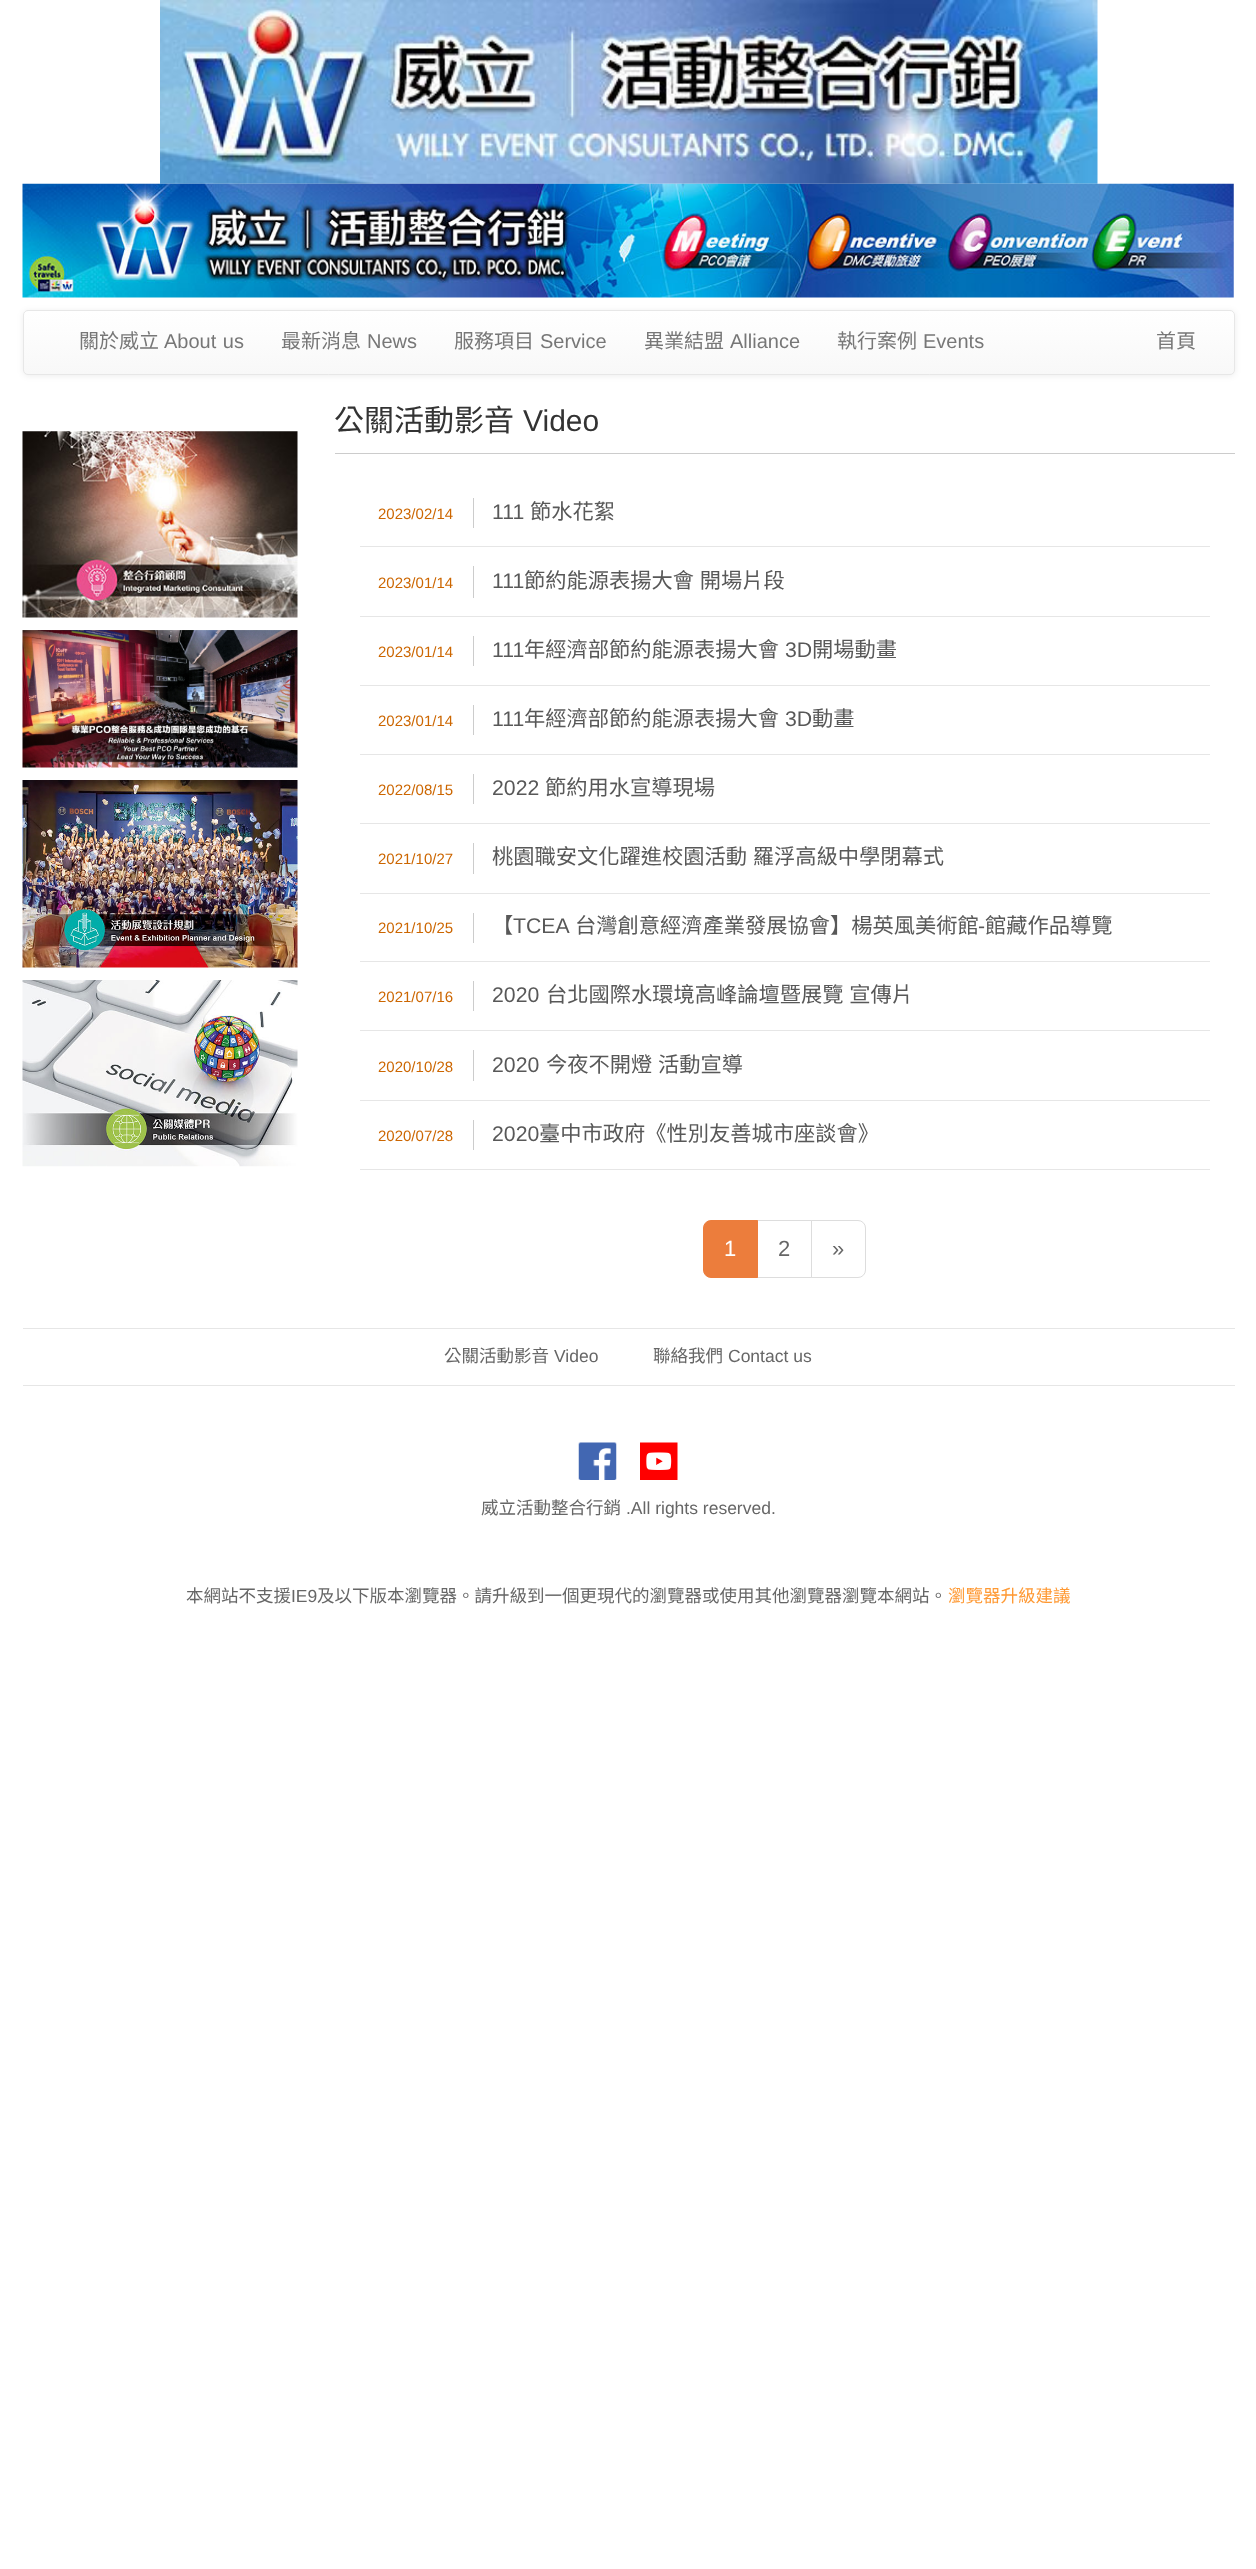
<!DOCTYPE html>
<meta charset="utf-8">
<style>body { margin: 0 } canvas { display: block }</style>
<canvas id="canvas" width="1256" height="2569"></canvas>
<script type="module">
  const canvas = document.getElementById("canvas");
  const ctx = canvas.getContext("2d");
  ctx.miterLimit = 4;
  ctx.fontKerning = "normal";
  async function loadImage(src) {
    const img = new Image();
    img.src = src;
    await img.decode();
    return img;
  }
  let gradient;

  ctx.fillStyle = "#ffffff";
  ctx.fillRect(0, 0, 1256, 2569);
  ctx.drawImage(await loadImage("img1.png"), 160, 0, 938, 184);
  ctx.drawImage(await loadImage("img2.png"), 22, 183, 1212, 115);
  ctx.fillStyle = "rgba(0, 0, 0, 0.07)";
  ctx.filter = "blur(3px)";
  ctx.beginPath();
  ctx.roundRect(23, 311, 1212, 65, 5);
  ctx.fill();
  ctx.filter = "none";
  ctx.save();
  ctx.beginPath();
  ctx.roundRect(23, 310, 1212, 65, 5);
  ctx.clip();
  gradient = ctx.createLinearGradient(629, 311, 629, 374);
  gradient.addColorStop(0, "#ffffff");
  gradient.addColorStop(1, "#f8f8f8");
  ctx.fillStyle = gradient;
  ctx.fillRect(23, 311, 1212, 63);
  ctx.restore();
  ctx.beginPath();
  ctx.roundRect(23.5, 310.5, 1211, 64, 4.5);
  ctx.strokeStyle = "#e7e7e7";
  ctx.stroke();
  ctx.font = "20px Noto Sans CJK TC";
  ctx.fillStyle = "#777777";
  ctx.fillText("關於威立", 79, 348);
  ctx.wordSpacing = "1px";
  ctx.font = "20px Liberation Sans";
  ctx.fillText("About us", 164, 348);
  ctx.wordSpacing = "0px";
  ctx.font = "20px Noto Sans CJK TC";
  ctx.fillText("最新消息", 281, 348);
  ctx.font = "20px Liberation Sans";
  ctx.fillText("News", 367, 348);
  ctx.font = "20px Noto Sans CJK TC";
  ctx.fillText("服務項目", 454, 348);
  ctx.font = "20px Liberation Sans";
  ctx.fillText("Service", 540, 348);
  ctx.font = "20px Noto Sans CJK TC";
  ctx.fillText("異業結盟", 644, 348);
  ctx.font = "20px Liberation Sans";
  ctx.fillText("Alliance", 730, 348);
  ctx.font = "20px Noto Sans CJK TC";
  ctx.fillText("執行案例", 837, 348);
  ctx.font = "20px Liberation Sans";
  ctx.fillText("Events", 923, 348);
  ctx.font = "20px Noto Sans CJK TC";
  ctx.fillText("首頁", 1156, 348);
  ctx.drawImage(await loadImage("img3.png"), 22, 431, 276, 187);
  ctx.drawImage(await loadImage("img4.png"), 22, 630, 276, 138);
  ctx.drawImage(await loadImage("img5.png"), 22, 780, 276, 188);
  ctx.drawImage(await loadImage("img6.png"), 22, 980, 276, 187);
  ctx.fillStyle = "#cccccc";
  ctx.fillRect(335, 453, 900, 1);
  ctx.font = "30px Noto Sans CJK TC";
  ctx.fillStyle = "#333333";
  ctx.fillText("公關活動影音", 334, 431);
  ctx.font = "30px Liberation Sans";
  ctx.fillText("Video", 523, 431);
  ctx.fillStyle = "#e6e6e6";
  ctx.fillRect(360, 546, 850, 1);
  ctx.font = "15px Liberation Sans";
  ctx.fillStyle = "#cc6600";
  ctx.fillText("2023/02/14", 378, 519);
  ctx.fillStyle = "#cccccc";
  ctx.fillRect(473, 498, 1, 30);
  ctx.font = "21.25px Liberation Sans";
  ctx.fillStyle = "#585858";
  ctx.fillText("111", 492, 519);
  ctx.font = "21.25px Noto Sans CJK TC";
  ctx.fillText("節水花絮", 530, 519);
  ctx.fillStyle = "#e6e6e6";
  ctx.fillRect(360, 616, 850, 1);
  ctx.font = "15px Liberation Sans";
  ctx.fillStyle = "#cc6600";
  ctx.fillText("2023/01/14", 378, 588);
  ctx.fillStyle = "#cccccc";
  ctx.fillRect(473, 566, 1, 32);
  ctx.font = "21.25px Liberation Sans";
  ctx.fillStyle = "#585858";
  ctx.fillText("111", 492, 588);
  ctx.wordSpacing = "1px";
  ctx.font = "21.25px Noto Sans CJK TC";
  ctx.fillText("節約能源表揚大會 開場片段", 524, 588);
  ctx.fillStyle = "#e6e6e6";
  ctx.fillRect(360, 685, 850, 1);
  ctx.wordSpacing = "0px";
  ctx.font = "15px Liberation Sans";
  ctx.fillStyle = "#cc6600";
  ctx.fillText("2023/01/14", 378, 657);
  ctx.fillStyle = "#cccccc";
  ctx.fillRect(473, 636, 1, 30);
  ctx.font = "21.25px Liberation Sans";
  ctx.fillStyle = "#585858";
  ctx.fillText("111", 492, 657);
  ctx.font = "21.25px Noto Sans CJK TC";
  ctx.fillText("年經濟部節約能源表揚大會", 524, 657);
  ctx.font = "21.25px Liberation Sans";
  ctx.fillText("3D", 785, 657);
  ctx.font = "21.25px Noto Sans CJK TC";
  ctx.fillText("開場動畫", 812, 657);
  ctx.fillStyle = "#e6e6e6";
  ctx.fillRect(360, 754, 850, 1);
  ctx.font = "15px Liberation Sans";
  ctx.fillStyle = "#cc6600";
  ctx.fillText("2023/01/14", 378, 726);
  ctx.fillStyle = "#cccccc";
  ctx.fillRect(473, 705, 1, 30);
  ctx.font = "21.25px Liberation Sans";
  ctx.fillStyle = "#585858";
  ctx.fillText("111", 492, 726);
  ctx.font = "21.25px Noto Sans CJK TC";
  ctx.fillText("年經濟部節約能源表揚大會", 524, 726);
  ctx.font = "21.25px Liberation Sans";
  ctx.fillText("3D", 785, 726);
  ctx.font = "21.25px Noto Sans CJK TC";
  ctx.fillText("動畫", 812, 726);
  ctx.fillStyle = "#e6e6e6";
  ctx.fillRect(360, 823, 850, 1);
  ctx.font = "15px Liberation Sans";
  ctx.fillStyle = "#cc6600";
  ctx.fillText("2022/08/15", 378, 795);
  ctx.fillStyle = "#cccccc";
  ctx.fillRect(473, 774, 1, 30);
  ctx.font = "21.25px Liberation Sans";
  ctx.fillStyle = "#585858";
  ctx.fillText("2022", 492, 795);
  ctx.font = "21.25px Noto Sans CJK TC";
  ctx.fillText("節約用水宣導現場", 545, 795);
  ctx.fillStyle = "#e6e6e6";
  ctx.fillRect(360, 893, 850, 1);
  ctx.font = "15px Liberation Sans";
  ctx.fillStyle = "#cc6600";
  ctx.fillText("2021/10/27", 378, 864);
  ctx.fillStyle = "#cccccc";
  ctx.fillRect(473, 843, 1, 31);
  ctx.wordSpacing = "1px";
  ctx.font = "21.25px Noto Sans CJK TC";
  ctx.fillStyle = "#585858";
  ctx.fillText("桃園職安文化躍進校園活動 羅浮高級中學閉幕式", 492, 864);
  ctx.fillStyle = "#e6e6e6";
  ctx.fillRect(360, 961, 850, 1);
  ctx.wordSpacing = "0px";
  ctx.font = "15px Liberation Sans";
  ctx.fillStyle = "#cc6600";
  ctx.fillText("2021/10/25", 378, 933);
  ctx.fillStyle = "#cccccc";
  ctx.fillRect(473, 913, 1, 30);
  ctx.font = "21.25px Noto Sans CJK TC";
  ctx.fillStyle = "#585858";
  ctx.fillText("【", 492, 933);
  ctx.font = "21.25px Liberation Sans";
  ctx.fillText("TCEA", 513, 933);
  ctx.font = "21.25px Noto Sans CJK TC";
  ctx.fillText("台灣創意經濟產業發展協會】楊英風美術館", 575, 933);
  ctx.font = "21.25px Liberation Sans";
  ctx.fillText("-", 978, 933);
  ctx.font = "21.25px Noto Sans CJK TC";
  ctx.fillText("館藏作品導覽", 985, 933);
  ctx.fillStyle = "#e6e6e6";
  ctx.fillRect(360, 1030, 850, 1);
  ctx.font = "15px Liberation Sans";
  ctx.fillStyle = "#cc6600";
  ctx.fillText("2021/07/16", 378, 1002);
  ctx.fillStyle = "#cccccc";
  ctx.fillRect(473, 981, 1, 30);
  ctx.font = "21.25px Liberation Sans";
  ctx.fillStyle = "#585858";
  ctx.fillText("2020", 492, 1002);
  ctx.wordSpacing = "1px";
  ctx.font = "21.25px Noto Sans CJK TC";
  ctx.fillText("台北國際水環境高峰論壇暨展覽 宣傳片", 546, 1002);
  ctx.fillStyle = "#e6e6e6";
  ctx.fillRect(360, 1100, 850, 1);
  ctx.wordSpacing = "0px";
  ctx.font = "15px Liberation Sans";
  ctx.fillStyle = "#cc6600";
  ctx.fillText("2020/10/28", 378, 1072);
  ctx.fillStyle = "#cccccc";
  ctx.fillRect(473, 1050, 1, 31);
  ctx.font = "21.25px Liberation Sans";
  ctx.fillStyle = "#585858";
  ctx.fillText("2020", 492, 1072);
  ctx.wordSpacing = "1px";
  ctx.font = "21.25px Noto Sans CJK TC";
  ctx.fillText("今夜不開燈 活動宣導", 546, 1072);
  ctx.fillStyle = "#e6e6e6";
  ctx.fillRect(360, 1169, 850, 1);
  ctx.wordSpacing = "0px";
  ctx.font = "15px Liberation Sans";
  ctx.fillStyle = "#cc6600";
  ctx.fillText("2020/07/28", 378, 1141);
  ctx.fillStyle = "#cccccc";
  ctx.fillRect(473, 1120, 1, 30);
  ctx.font = "21.25px Liberation Sans";
  ctx.fillStyle = "#585858";
  ctx.fillText("2020", 492, 1141);
  ctx.font = "21.25px Noto Sans CJK TC";
  ctx.fillText("臺中市政府《性別友善城市座談會》", 539, 1141);
  ctx.strokeStyle = "#dddddd";
  ctx.strokeRect(756.5, 1220.5, 56, 57);
  ctx.fillStyle = "#ec7d3c";
  ctx.beginPath();
  ctx.roundRect(703.5, 1220.5, 54, 57, [7.5, 0, 0, 7.5]);
  ctx.fill();
  ctx.strokeStyle = "#ec7d3c";
  ctx.stroke();
  ctx.font = "22px Liberation Sans";
  ctx.fillStyle = "#ffffff";
  ctx.fillText("1", 724, 1256);
  ctx.fillStyle = "#666666";
  ctx.fillText("2", 778, 1256);
  ctx.fillStyle = "#ffffff";
  ctx.beginPath();
  ctx.roundRect(811.5, 1220.5, 54, 57, [0, 7.5, 7.5, 0]);
  ctx.fill();
  ctx.strokeStyle = "#dddddd";
  ctx.stroke();
  ctx.fillStyle = "#666666";
  ctx.fillText("»", 832, 1256);
  ctx.fillStyle = "#e6e6e6";
  ctx.fillRect(23, 1328, 1212, 1);
  ctx.fillRect(23, 1385, 1212, 1);
  ctx.font = "17.5px Noto Sans CJK TC";
  ctx.fillStyle = "#666666";
  ctx.fillText("公關活動影音", 444, 1362);
  ctx.font = "17.5px Liberation Sans";
  ctx.fillText("Video", 554, 1362);
  ctx.font = "17.5px Noto Sans CJK TC";
  ctx.fillText("聯絡我們", 653, 1362);
  ctx.font = "17.5px Liberation Sans";
  ctx.fillText("Contact us", 728, 1362);
  ctx.drawImage(await loadImage("img7.png"), 578, 1442, 39, 38);
  ctx.drawImage(await loadImage("img8.png"), 640, 1442, 38, 38);
  ctx.font = "17.5px Noto Sans CJK TC";
  ctx.fillText("威立活動整合行銷", 481, 1514);
  ctx.font = "17.5px Liberation Sans";
  ctx.fillText(".All rights reserved.", 626, 1514);
  ctx.font = "17.5px Noto Sans CJK TC";
  ctx.fillText("本網站不支援", 186, 1602);
  ctx.font = "17.5px Liberation Sans";
  ctx.fillText("IE9", 291, 1602);
  ctx.font = "17.5px Noto Sans CJK TC";
  ctx.fillText("及以下版本瀏覽器。請升級到一個更現代的瀏覽器或使用其他瀏覽器瀏覽本網站。", 317, 1602);
  ctx.fillStyle = "#ff9933";
  ctx.fillText("瀏覽器升級建議", 948, 1602);
</script>
